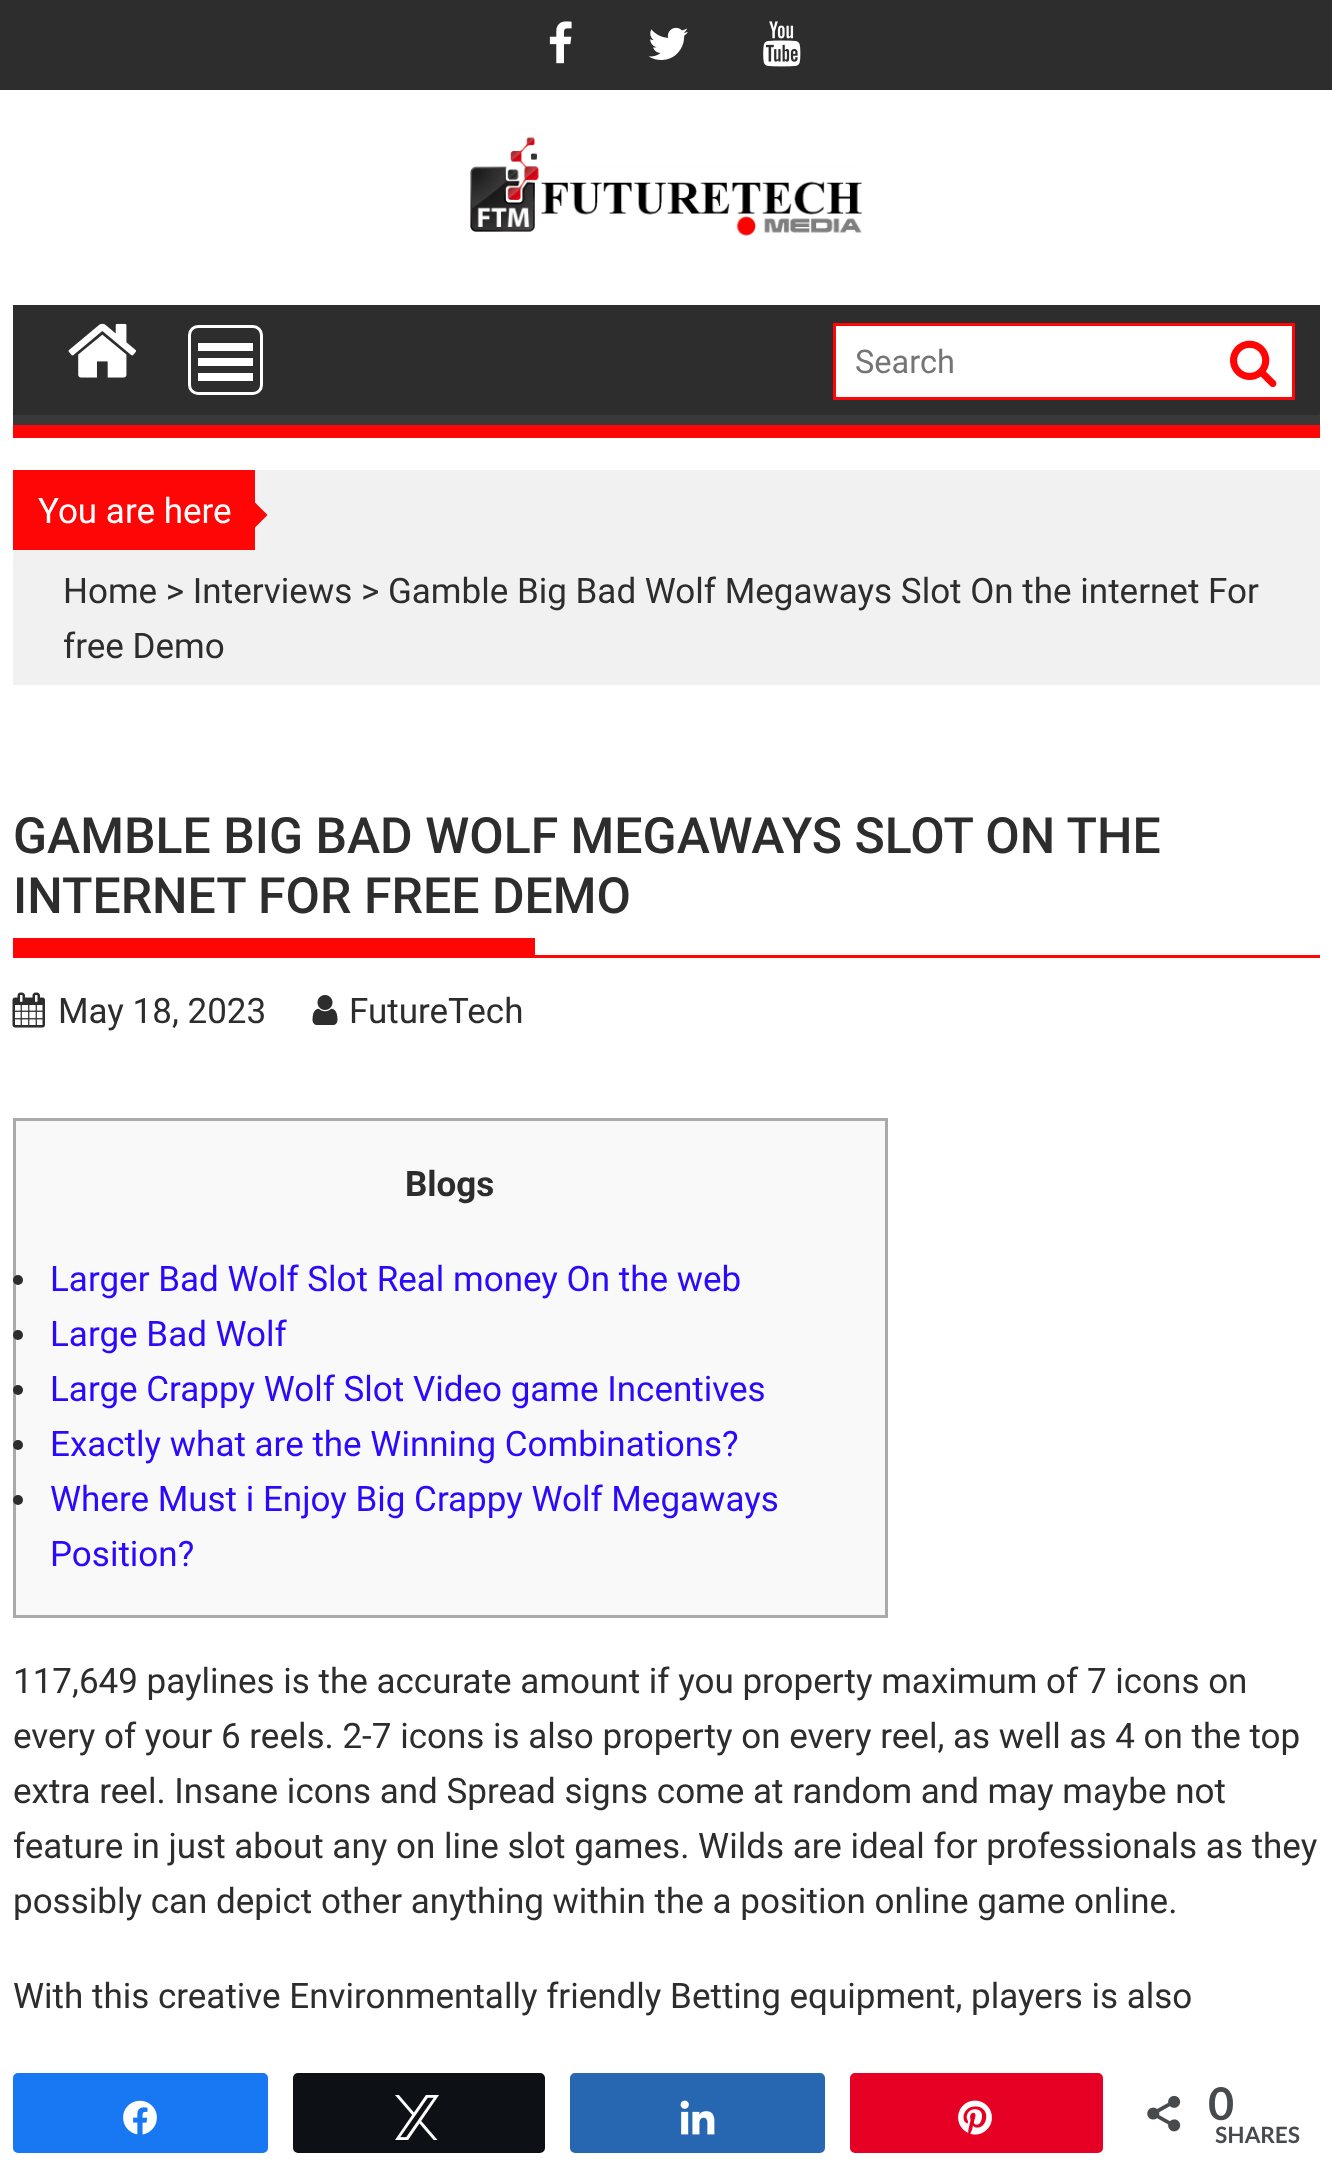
<!DOCTYPE html>
<meta charset="utf-8">
<style>body { margin: 0 } canvas { display: block }</style>
<canvas id="canvas" width="1332" height="2181"></canvas>
<script type="module">
  const canvas = document.getElementById("canvas");
  const ctx = canvas.getContext("2d");
  ctx.miterLimit = 4;
  ctx.fontKerning = "normal";
  async function loadImage(src) {
    const img = new Image();
    img.src = src;
    await img.decode();
    return img;
  }

  ctx.fillStyle = "#ffffff";
  ctx.fillRect(0, 0, 1332, 2181);
  ctx.fillStyle = "#2d2d2d";
  ctx.fillRect(0, 0, 1332, 90);
  ctx.drawImage(await loadImage("img1.png"), 549, 21, 23, 43);
  ctx.drawImage(await loadImage("img2.png"), 648, 27, 40, 33);
  ctx.drawImage(await loadImage("img3.png"), 763, 21, 38, 46);
  ctx.drawImage(await loadImage("img4.png"), 470, 137, 392, 100);
  ctx.fillRect(13, 305, 1307, 110);
  ctx.save();
  ctx.beginPath();
  ctx.rect(13, 305, 1307, 120);
  ctx.clip();
  ctx.fillStyle = "#393939";
  ctx.beginPath();
  ctx.moveTo(-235, 58);
  ctx.lineTo(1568, 58);
  ctx.lineTo(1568, 672);
  ctx.lineTo(-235, 672);
  ctx.closePath();
  ctx.moveTo(10, 290);
  ctx.lineTo(1318, 290);
  ctx.bezierCurveTo(1319, 290, 1320, 291, 1320, 292);
  ctx.lineTo(1320, 412);
  ctx.bezierCurveTo(1320, 414, 1319, 415, 1318, 415);
  ctx.lineTo(10, 415);
  ctx.bezierCurveTo(9, 415, 8, 414, 8, 412);
  ctx.lineTo(8, 292);
  ctx.bezierCurveTo(8, 291, 9, 290, 10, 290);
  ctx.closePath();
  ctx.fill("evenodd");
  ctx.restore();
  ctx.fillStyle = "#fe0506";
  ctx.fillRect(13, 425, 1307, 13);
  ctx.beginPath();
  ctx.roundRect(189.5, 326.5, 72, 67, 8.5);
  ctx.strokeStyle = "#ffffff";
  ctx.lineWidth = 3;
  ctx.stroke();
  ctx.fillStyle = "#ffffff";
  ctx.fillRect(198, 373, 55, 8);
  ctx.fillRect(198, 358, 55, 8);
  ctx.fillRect(198, 343, 55, 8);
  ctx.drawImage(await loadImage("img5.png"), 68, 323, 68, 55);
  ctx.beginPath();
  ctx.rect(834.5, 324.5, 459, 74);
  ctx.fill();
  ctx.strokeStyle = "#fe0506";
  ctx.stroke();
  ctx.font = "32.5px Roboto";
  ctx.fillStyle = "#757575";
  ctx.fillText("Search", 855, 373);
  ctx.drawImage(await loadImage("img6.png"), 1230, 340, 47, 48);
  ctx.fillStyle = "#f1f1f1";
  ctx.fillRect(13, 470, 1307, 215);
  ctx.fillStyle = "#fe0506";
  ctx.fillRect(13, 470, 242, 80);
  ctx.font = "35px Roboto";
  ctx.fillStyle = "#ffffff";
  ctx.fillText("You are here", 38, 523);
  ctx.fillStyle = "#fe0506";
  ctx.beginPath();
  ctx.moveTo(255, 527.5);
  ctx.lineTo(255, 502.5);
  ctx.lineTo(267.5, 515);
  ctx.closePath();
  ctx.fill();
  ctx.fillStyle = "#2d2d2d";
  ctx.fillText("Home > Interviews > Gamble Big Bad Wolf Megaways Slot On the internet For", 63, 603);
  ctx.fillText("free Demo", 63, 658);
  ctx.fillStyle = "#fe0506";
  ctx.fillRect(13, 955, 1307, 3);
  ctx.font = "500 50px Roboto";
  ctx.fillStyle = "#2d2d2d";
  ctx.fillText("GAMBLE BIG BAD WOLF MEGAWAYS SLOT ON THE", 13, 853);
  ctx.fillText("INTERNET FOR FREE DEMO", 13, 913);
  ctx.fillStyle = "#fe0506";
  ctx.fillRect(13, 938, 522, 17);
  ctx.drawImage(await loadImage("img7.png"), 12, 992, 33, 36);
  ctx.font = "35px Roboto";
  ctx.fillStyle = "#2d2d2d";
  ctx.fillText("May 18, 2023", 58, 1023);
  ctx.drawImage(await loadImage("img8.png"), 312, 995, 26, 30);
  ctx.fillText("FutureTech", 349, 1023);
  ctx.fillStyle = "#f9f9f9";
  ctx.beginPath();
  ctx.rect(14.5, 1119.5, 872, 497);
  ctx.fill();
  ctx.strokeStyle = "#aaaaaa";
  ctx.stroke();
  ctx.font = "bold 35px Roboto";
  ctx.fillStyle = "#2d2d2d";
  ctx.fillText("Blogs", 405, 1196);
  ctx.beginPath();
  ctx.arc(18, 1280, 5, 0, Math.PI * 2);
  ctx.fill();
  ctx.font = "35px Roboto";
  ctx.fillStyle = "#2b09fc";
  ctx.fillText("Larger Bad Wolf Slot Real money On the web", 50, 1291);
  ctx.fillStyle = "#2d2d2d";
  ctx.beginPath();
  ctx.arc(18, 1335, 5, 0, Math.PI * 2);
  ctx.fill();
  ctx.fillStyle = "#2b09fc";
  ctx.fillText("Large Bad Wolf", 50, 1346);
  ctx.fillStyle = "#2d2d2d";
  ctx.beginPath();
  ctx.arc(18, 1390, 5, 0, Math.PI * 2);
  ctx.fill();
  ctx.fillStyle = "#2b09fc";
  ctx.fillText("Large Crappy Wolf Slot Video game Incentives", 50, 1401);
  ctx.fillStyle = "#2d2d2d";
  ctx.beginPath();
  ctx.arc(18, 1445, 5, 0, Math.PI * 2);
  ctx.fill();
  ctx.fillStyle = "#2b09fc";
  ctx.fillText("Exactly what are the Winning Combinations?", 50, 1456);
  ctx.fillStyle = "#2d2d2d";
  ctx.beginPath();
  ctx.arc(18, 1500, 5, 0, Math.PI * 2);
  ctx.fill();
  ctx.fillStyle = "#2b09fc";
  ctx.fillText("Where Must i Enjoy Big Crappy Wolf Megaways", 50, 1511);
  ctx.fillText("Position?", 50, 1566);
  ctx.fillStyle = "#2d2d2d";
  ctx.fillText("117,649 paylines is the accurate amount if you property maximum of 7 icons on", 13, 1693);
  ctx.fillText("every of your 6 reels. 2-7 icons is also property on every reel, as well as 4 on the top", 13, 1748);
  ctx.fillText("extra reel. Insane icons and Spread signs come at random and may maybe not", 13, 1803);
  ctx.fillText("feature in just about any on line slot games. Wilds are ideal for professionals as they", 13, 1858);
  ctx.fillText("possibly can depict other anything within the a position online game online.", 13, 1913);
  ctx.fillText("With this creative Environmentally friendly Betting equipment, players is also", 13, 2008);
  ctx.fillStyle = "#1877f2";
  ctx.beginPath();
  ctx.roundRect(14.5, 2074.5, 252, 77, 3.5);
  ctx.fill();
  ctx.strokeStyle = "#1877f2";
  ctx.stroke();
  ctx.drawImage(await loadImage("img9.png"), 123, 2100, 34, 35);
  ctx.fillStyle = "#0d1014";
  ctx.beginPath();
  ctx.roundRect(294.5, 2074.5, 249, 77, 3.5);
  ctx.fill();
  ctx.strokeStyle = "#0d1014";
  ctx.stroke();
  ctx.drawImage(await loadImage("img10.png"), 395, 2095, 44, 45);
  ctx.fillStyle = "#2767b1";
  ctx.beginPath();
  ctx.roundRect(571.5, 2074.5, 252, 77, 3.5);
  ctx.fill();
  ctx.strokeStyle = "#2767b1";
  ctx.stroke();
  ctx.drawImage(await loadImage("img11.png"), 680, 2100, 35, 35);
  ctx.fillStyle = "#e60023";
  ctx.beginPath();
  ctx.roundRect(851.5, 2074.5, 250, 77, 3.5);
  ctx.fill();
  ctx.strokeStyle = "#e60023";
  ctx.stroke();
  ctx.drawImage(await loadImage("img12.png"), 958, 2100, 34, 35);
  ctx.drawImage(await loadImage("img13.png"), 1147, 2095, 34, 37);
  ctx.font = "bold 45px Lato";
  ctx.fillStyle = "#474b4d";
  ctx.fillText("0", 1208, 2120);
  ctx.font = "bold 22.5px Lato";
  ctx.fillText("SHARES", 1215, 2143);
</script>
